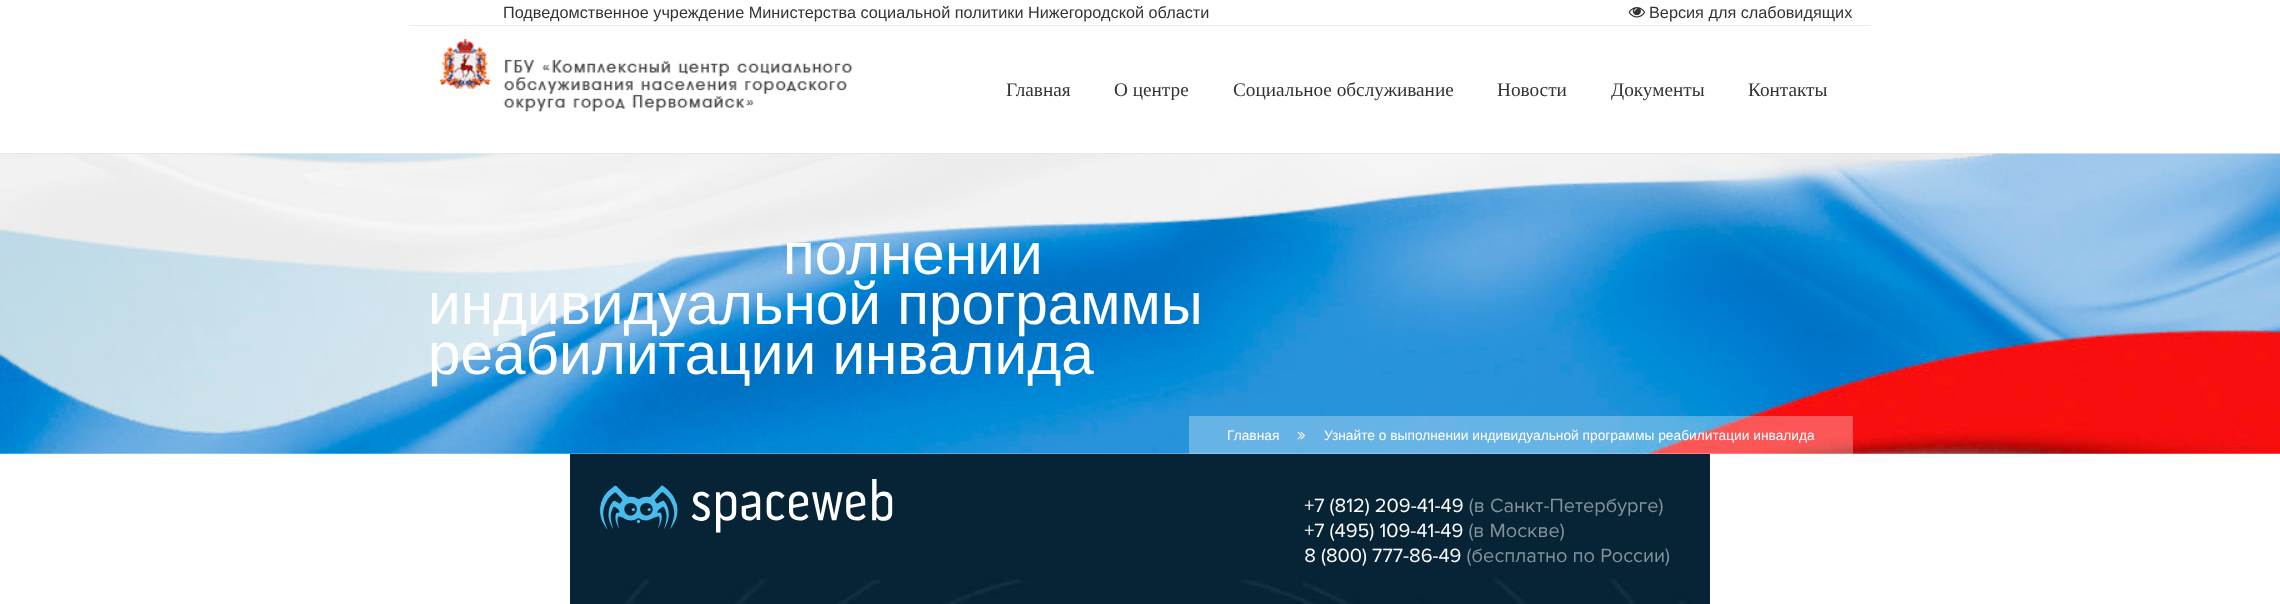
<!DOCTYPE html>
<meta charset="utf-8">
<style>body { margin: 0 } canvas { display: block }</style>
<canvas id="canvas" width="2280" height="604"></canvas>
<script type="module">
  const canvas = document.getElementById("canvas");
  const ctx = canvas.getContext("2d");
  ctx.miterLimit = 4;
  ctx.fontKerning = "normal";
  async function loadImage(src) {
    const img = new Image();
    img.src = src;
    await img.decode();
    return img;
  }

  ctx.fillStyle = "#ffffff";
  ctx.fillRect(0, 0, 2280, 604);
  ctx.fillStyle = "#eeeeee";
  ctx.fillRect(409, 25, 1462, 1);
  ctx.font = "16.25px Liberation Sans";
  ctx.fillStyle = "#333333";
  ctx.fillText("Подведомственное учреждение Министерства социальной политики Нижегородской области", 503, 18);
  ctx.drawImage(await loadImage("img1.png"), 1628, 7, 17, 11);
  ctx.fillText("Версия для слабовидящих", 1649, 18);
  ctx.fillStyle = "#e5e5e5";
  ctx.fillRect(0, 153, 2280, 1);
  ctx.drawImage(await loadImage("img2.png"), 439, 38, 414, 74);
  ctx.font = "19.25px Liberation Serif";
  ctx.fillStyle = "#333333";
  ctx.fillText("Главная", 1006, 96);
  ctx.fillText("О центре", 1114, 96);
  ctx.fillText("Социальное обслуживание", 1233, 96);
  ctx.fillText("Новости", 1497, 96);
  ctx.fillText("Документы", 1611, 96);
  ctx.fillText("Контакты", 1748, 96);
  ctx.drawImage(await loadImage("img3.png"), 0, 153, 2280, 301);
  ctx.font = "58.5px Liberation Sans";
  ctx.fillStyle = "#ffffff";
  ctx.fillText("полнении", 783, 274);
  ctx.fillText("индивидуальной программы", 428, 324);
  ctx.fillText("реабилитации инвалида", 428, 374);
  ctx.fillStyle = "rgba(255, 255, 255, 0.3)";
  ctx.fillRect(1189, 416, 664, 38);
  ctx.font = "13.75px Liberation Sans";
  ctx.fillStyle = "#ffffff";
  ctx.fillText("Главная", 1227, 440);
  ctx.drawImage(await loadImage("img4.png"), 1297, 431, 8, 9);
  ctx.fillText("Узнайте о выполнении индивидуальной программы реабилитации инвалида", 1324, 440);
  ctx.drawImage(await loadImage("img5.png"), 570, 454, 1140, 150);
</script>
